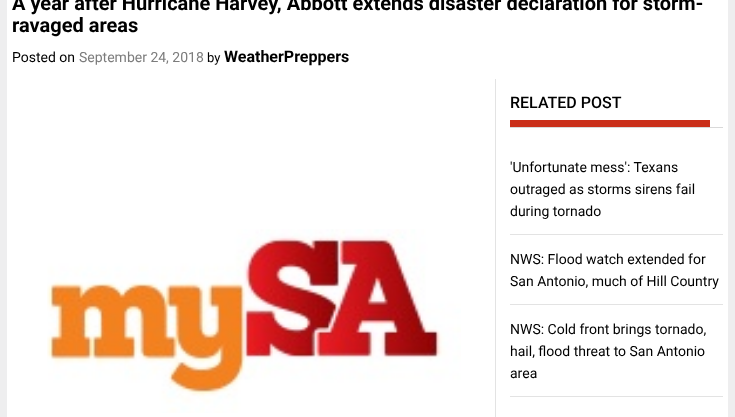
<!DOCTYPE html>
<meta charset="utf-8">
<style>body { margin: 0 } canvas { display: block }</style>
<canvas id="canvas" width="735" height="417"></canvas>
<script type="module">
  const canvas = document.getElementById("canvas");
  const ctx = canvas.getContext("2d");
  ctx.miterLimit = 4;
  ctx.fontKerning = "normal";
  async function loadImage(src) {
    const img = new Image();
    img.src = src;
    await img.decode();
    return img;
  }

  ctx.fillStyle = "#eeeeef";
  ctx.fillRect(0, 0, 735, 417);
  ctx.fillStyle = "#ffffff";
  ctx.fillRect(7, 0, 721, 417);
  ctx.font = "bold 20px Roboto";
  ctx.fillStyle = "#000000";
  ctx.fillText("A year after Hurricane Harvey, Abbott extends disaster declaration for storm-", 12, 10);
  ctx.fillText("ravaged areas", 12, 32);
  ctx.font = "14px Roboto";
  ctx.fillText("Posted on", 12, 62);
  ctx.fillStyle = "#7c7c7c";
  ctx.fillText("September 24, 2018", 79, 62);
  ctx.font = "13px Roboto";
  ctx.fillStyle = "#000000";
  ctx.fillText("by", 207, 62);
  ctx.font = "bold 16px Roboto";
  ctx.fillText("WeatherPreppers", 224, 62);
  ctx.drawImage(await loadImage("img1.png"), 47, 229, 414, 184);
  ctx.fillStyle = "#e3e3e3";
  ctx.fillRect(495, 79, 1, 338);
  ctx.fillStyle = "#d9d9d9";
  ctx.fillRect(510, 127, 213, 1);
  ctx.font = "500 16px Roboto";
  ctx.fillStyle = "#000000";
  ctx.fillText("RELATED POST", 510, 108);
  ctx.fillStyle = "#ca2f1a";
  ctx.fillRect(510, 120, 200, 7);
  ctx.fillStyle = "#e3e3e3";
  ctx.fillRect(510, 234, 213, 1);
  ctx.font = "14px Roboto";
  ctx.fillStyle = "#000000";
  ctx.fillText("'Unfortunate mess': Texans", 510, 172);
  ctx.fillText("outraged as storms sirens fail", 510, 194);
  ctx.fillText("during tornado", 510, 216);
  ctx.fillStyle = "#e3e3e3";
  ctx.fillRect(510, 304, 213, 1);
  ctx.fillStyle = "#000000";
  ctx.fillText("NWS: Flood watch extended for", 510, 264);
  ctx.fillText("San Antonio, much of Hill Country", 510, 286);
  ctx.fillStyle = "#e3e3e3";
  ctx.fillRect(510, 396, 213, 1);
  ctx.fillStyle = "#000000";
  ctx.fillText("NWS: Cold front brings tornado,", 510, 334);
  ctx.fillText("hail, flood threat to San Antonio", 510, 356);
  ctx.fillText("area", 510, 378);
</script>
